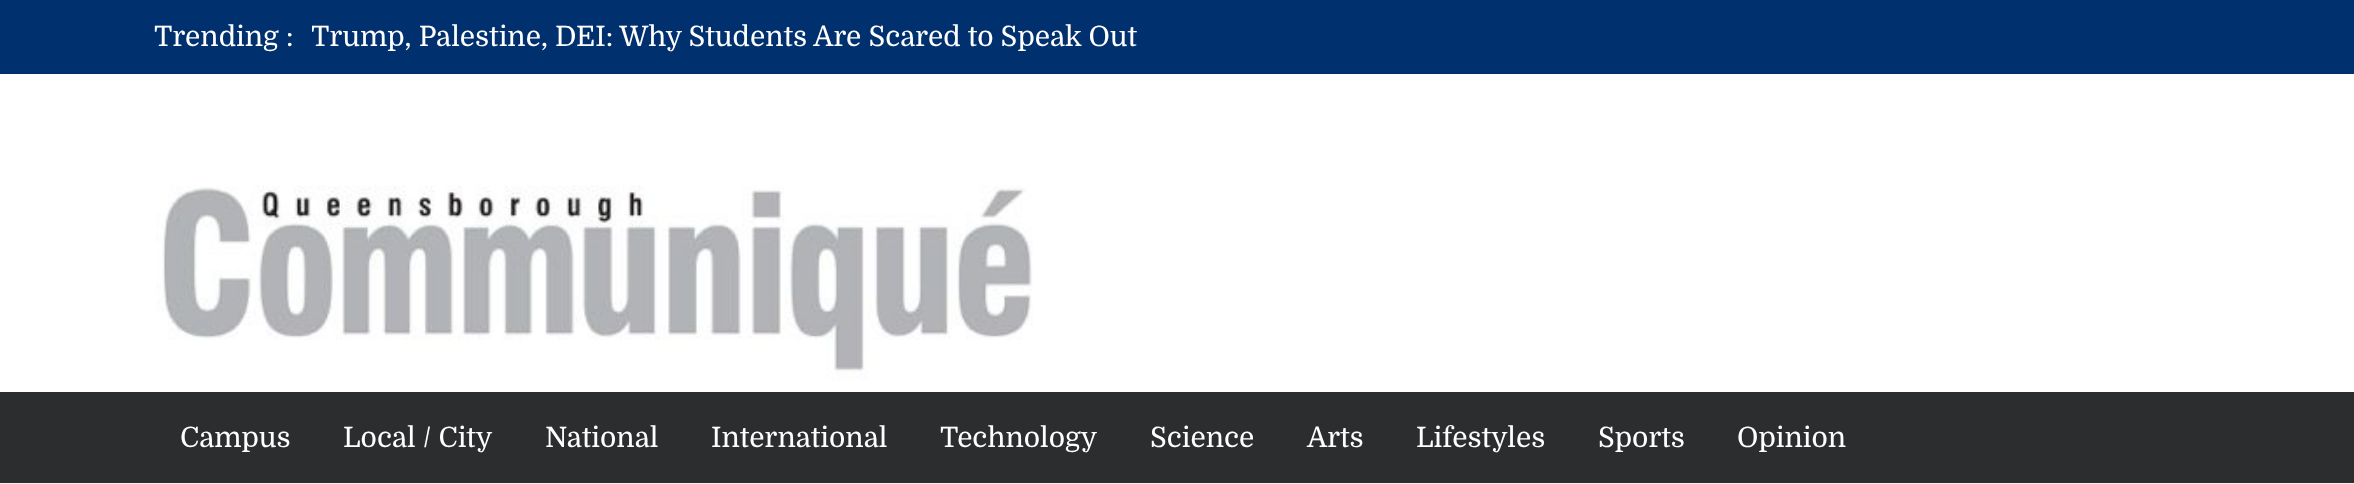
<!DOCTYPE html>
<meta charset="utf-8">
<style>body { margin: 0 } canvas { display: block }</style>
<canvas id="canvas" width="2354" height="484"></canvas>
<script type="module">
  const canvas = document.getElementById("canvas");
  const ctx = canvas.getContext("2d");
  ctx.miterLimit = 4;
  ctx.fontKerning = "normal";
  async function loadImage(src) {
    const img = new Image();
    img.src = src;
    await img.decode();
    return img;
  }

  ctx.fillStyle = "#ffffff";
  ctx.fillRect(0, 0, 2354, 484);
  ctx.fillStyle = "#00306e";
  ctx.fillRect(0, 0, 2354, 74);
  ctx.font = "28px Domine";
  ctx.fillStyle = "#ffffff";
  ctx.fillText("Trending :", 154, 46);
  ctx.save();
  ctx.beginPath();
  ctx.rect(312, 18, 1071, 38);
  ctx.clip();
  ctx.fillText("Trump, Palestine, DEI: Why Students Are Scared to Speak Out", 311, 46);
  ctx.restore();
  ctx.drawImage(await loadImage("img1.png"), 156, 185, 877, 196);
  ctx.fillStyle = "#2b2d2e";
  ctx.fillRect(0, 392, 2354, 91);
  ctx.fillStyle = "#ffffff";
  ctx.fillText("Campus", 180, 447);
  ctx.fillText("Local / City", 343, 447);
  ctx.fillText("National", 545, 447);
  ctx.fillText("International", 711, 447);
  ctx.fillText("Technology", 940, 447);
  ctx.fillText("Science", 1150, 447);
  ctx.fillText("Arts", 1307, 447);
  ctx.fillText("Lifestyles", 1416, 447);
  ctx.fillText("Sports", 1598, 447);
  ctx.fillText("Opinion", 1737, 447);
  ctx.fillStyle = "#f3f3f3";
  ctx.fillRect(0, 483, 2354, 1);
</script>
